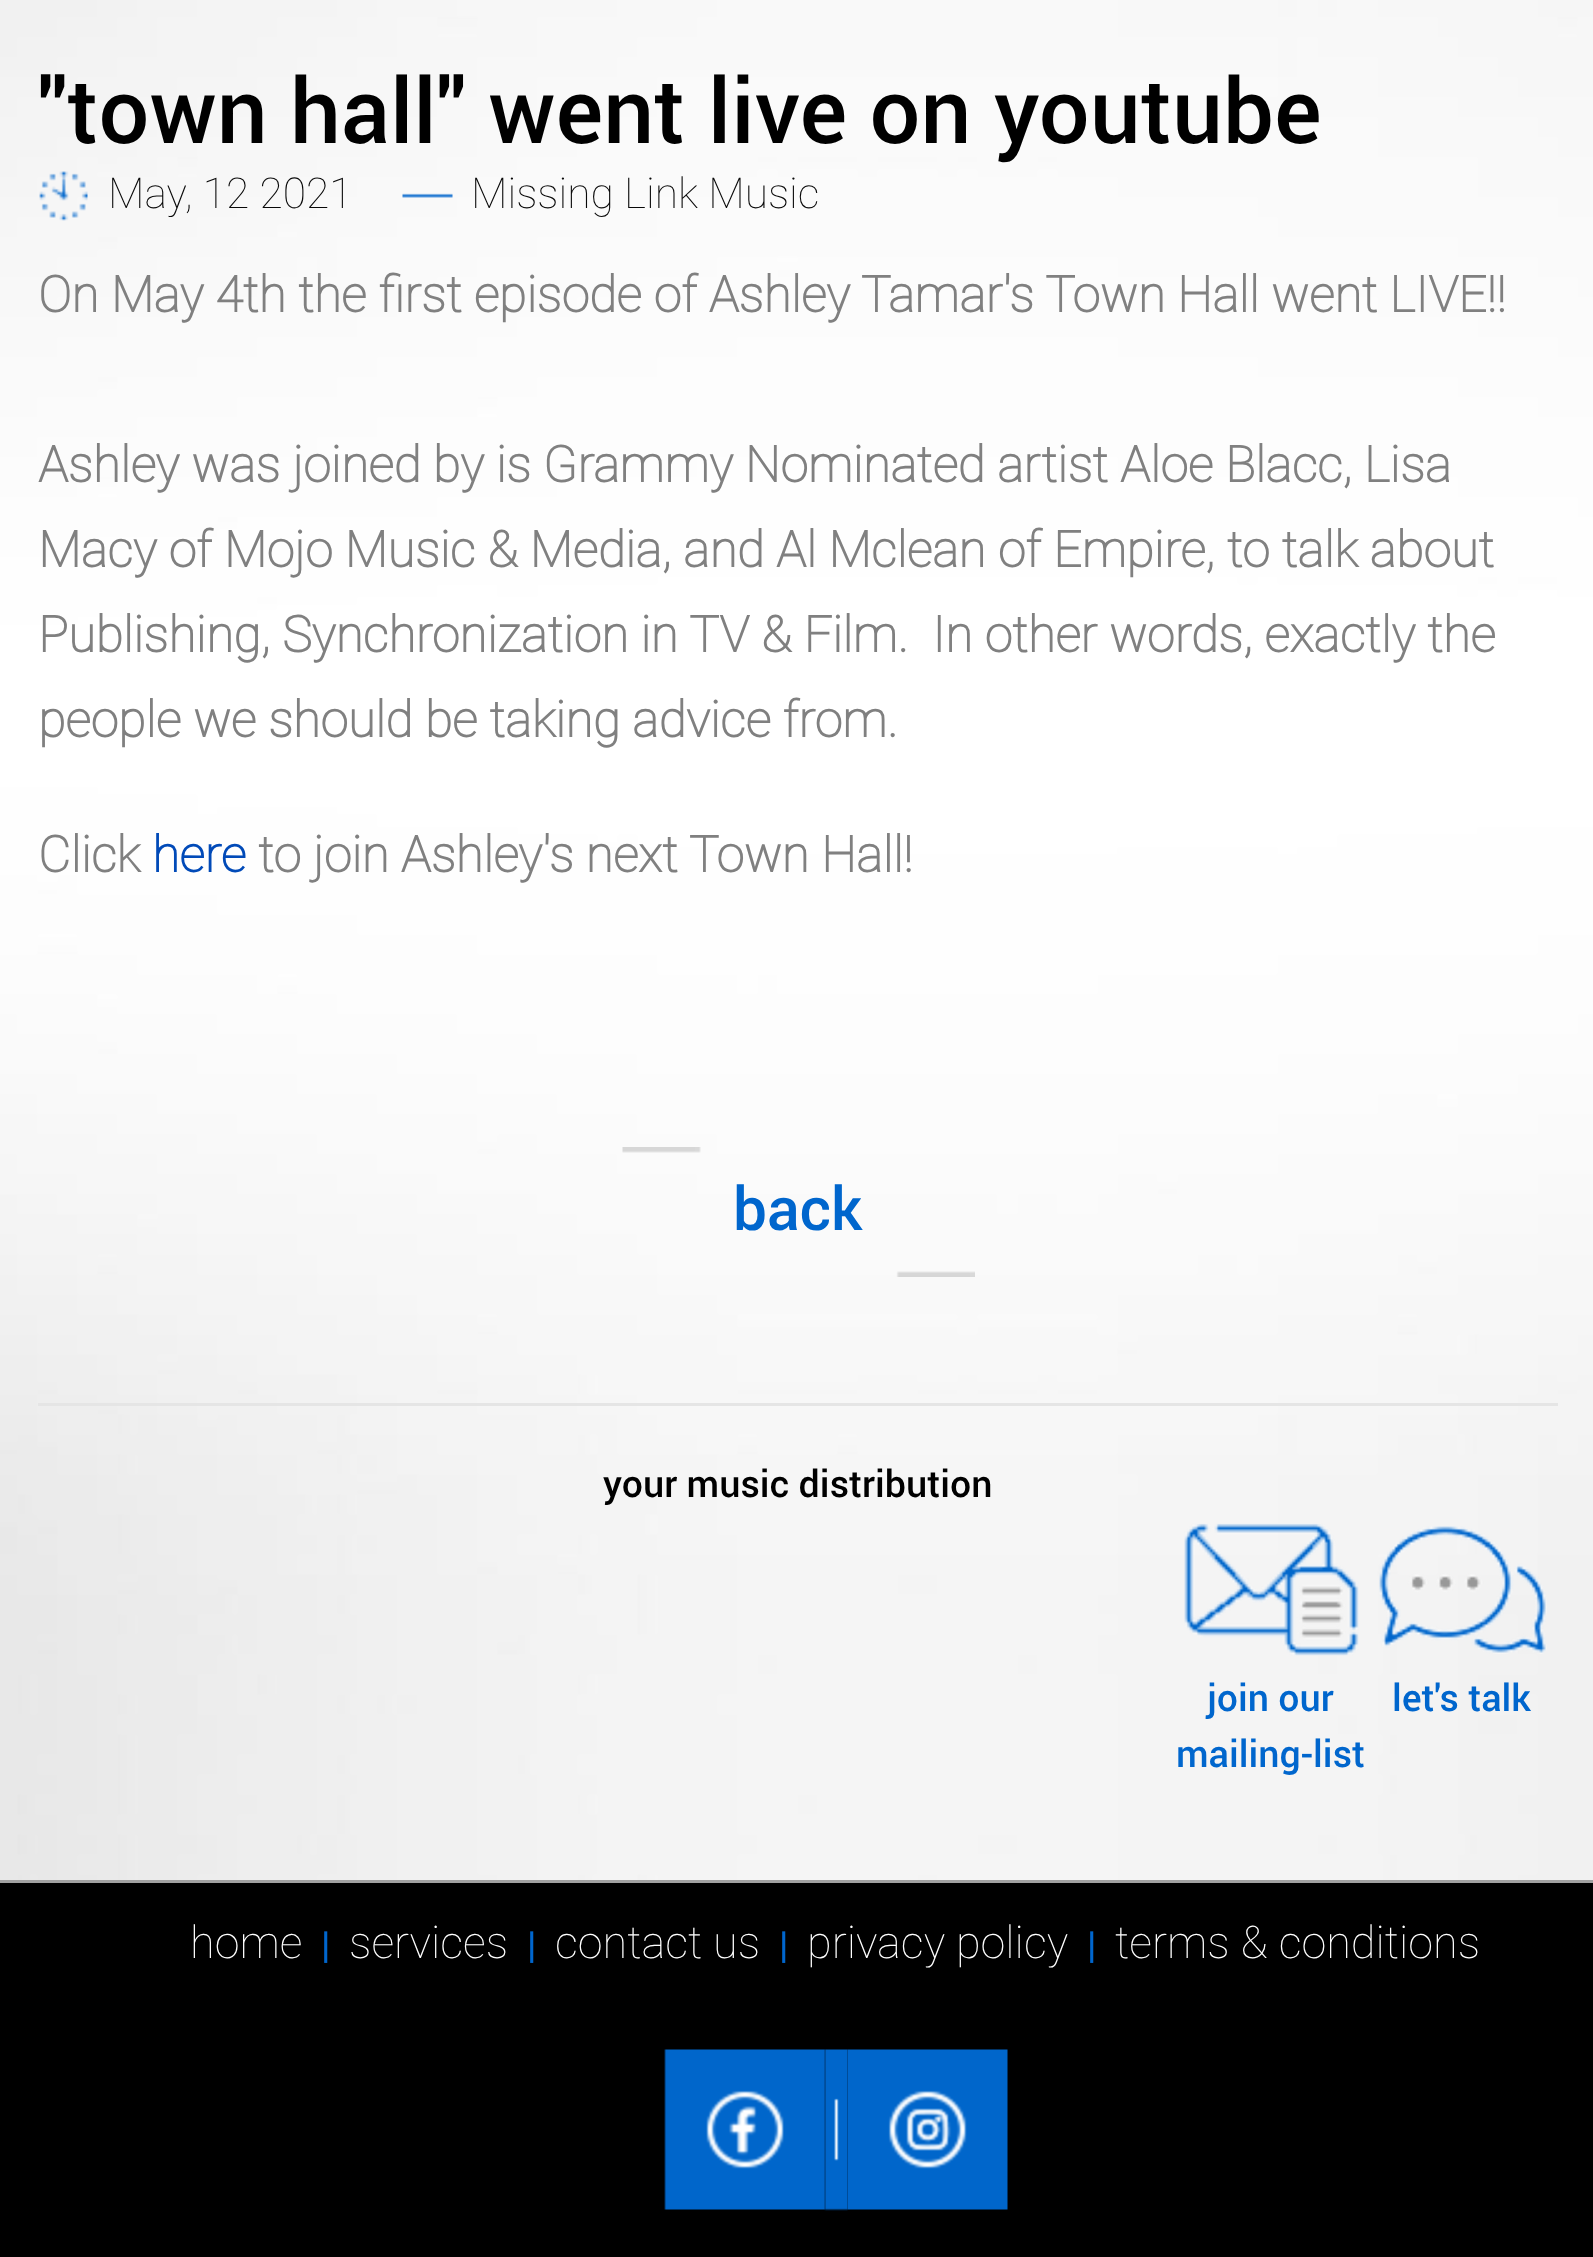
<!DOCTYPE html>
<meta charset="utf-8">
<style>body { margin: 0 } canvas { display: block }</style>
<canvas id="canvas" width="1593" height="2257"></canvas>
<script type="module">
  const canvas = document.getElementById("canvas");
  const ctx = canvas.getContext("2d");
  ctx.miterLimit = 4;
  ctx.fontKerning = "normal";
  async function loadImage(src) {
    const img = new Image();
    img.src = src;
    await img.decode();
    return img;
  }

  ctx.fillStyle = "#ffffff";
  ctx.fillRect(0, 0, 1593, 2257);
  ctx.drawImage(await loadImage("img1.png"), 0, 0, 1593, 1880);
  ctx.font = "500 90px Roboto";
  ctx.fillStyle = "#000000";
  ctx.fillText("\"town hall\" went live on youtube", 38, 143);
  ctx.drawImage(await loadImage("img2.png"), 39, 171, 49, 50);
  ctx.font = "100 42.5px Roboto";
  ctx.fillStyle = "#080808";
  ctx.fillText("May, 12 2021", 108, 208);
  ctx.drawImage(await loadImage("img3.png"), 402, 193, 51, 5);
  ctx.fillText("Missing Link Music", 471, 208);
  ctx.font = "bold 50px Roboto";
  ctx.fillStyle = "#808080";
  ctx.fillText("On May 4th the first episode of Ashley Tamar's Town Hall went LIVE!!", 38, 312);
  ctx.fillText("Ashley was joined by is Grammy Nominated artist Aloe Blacc, Lisa", 38, 482);
  ctx.fillText("Macy of Mojo Music & Media, and Al Mclean of Empire, to talk about", 38, 567);
  ctx.fillText("Publishing, Synchronization in TV & Film.  In other words, exactly the", 38, 652);
  ctx.fillText("people we should be taking advice from.", 38, 737);
  ctx.fillText("Click", 38, 872);
  ctx.fillStyle = "#014ab8";
  ctx.fillText("here", 152, 872);
  ctx.fillStyle = "#808080";
  ctx.fillText("to join Ashley's next Town Hall!", 258, 872);
  ctx.drawImage(await loadImage("img4.png"), 622, 1147, 353, 130);
  ctx.font = "500 60px Roboto";
  ctx.fillStyle = "#0066cd";
  ctx.fillText("back", 733, 1230);
  ctx.fillStyle = "#e5e5e5";
  ctx.fillRect(38, 1403, 1520, 3);
  ctx.font = "500 37.5px Roboto";
  ctx.fillStyle = "#000000";
  ctx.fillText("your music distribution", 603, 1497);
  ctx.drawImage(await loadImage("img5.png"), 1184, 1523, 175, 133);
  ctx.fillStyle = "#0066cd";
  ctx.fillText("join our", 1207, 1711);
  ctx.fillText("mailing-list", 1176, 1767);
  ctx.drawImage(await loadImage("img6.png"), 1379, 1526, 168, 128);
  ctx.fillText("let's talk", 1392, 1711);
  ctx.fillStyle = "#a1a1a1";
  ctx.fillRect(0, 1880, 1593, 3);
  ctx.fillStyle = "#000000";
  ctx.fillRect(0, 1883, 1593, 374);
  ctx.font = "100 45px Roboto";
  ctx.fillStyle = "#ffffff";
  ctx.fillText("home", 190, 1958);
  ctx.font = "500 37.5px Roboto";
  ctx.fillStyle = "#0066cd";
  ctx.fillText("|", 321, 1958);
  ctx.font = "100 45px Roboto";
  ctx.fillStyle = "#ffffff";
  ctx.fillText("services", 349, 1958);
  ctx.font = "500 37.5px Roboto";
  ctx.fillStyle = "#0066cd";
  ctx.fillText("|", 527, 1958);
  ctx.font = "100 45px Roboto";
  ctx.fillStyle = "#ffffff";
  ctx.fillText("contact us", 555, 1958);
  ctx.font = "500 37.5px Roboto";
  ctx.fillStyle = "#0066cd";
  ctx.fillText("|", 779, 1958);
  ctx.font = "100 45px Roboto";
  ctx.fillStyle = "#ffffff";
  ctx.fillText("privacy policy", 807, 1958);
  ctx.font = "500 37.5px Roboto";
  ctx.fillStyle = "#0066cd";
  ctx.fillText("|", 1087, 1958);
  ctx.font = "100 45px Roboto";
  ctx.fillStyle = "#ffffff";
  ctx.fillText("terms & conditions", 1115, 1958);
  ctx.drawImage(await loadImage("img7.png"), 664, 2049, 162, 161);
  ctx.drawImage(await loadImage("img8.png"), 824, 2049, 24, 162);
  ctx.drawImage(await loadImage("img9.png"), 847, 2049, 161, 161);
</script>
